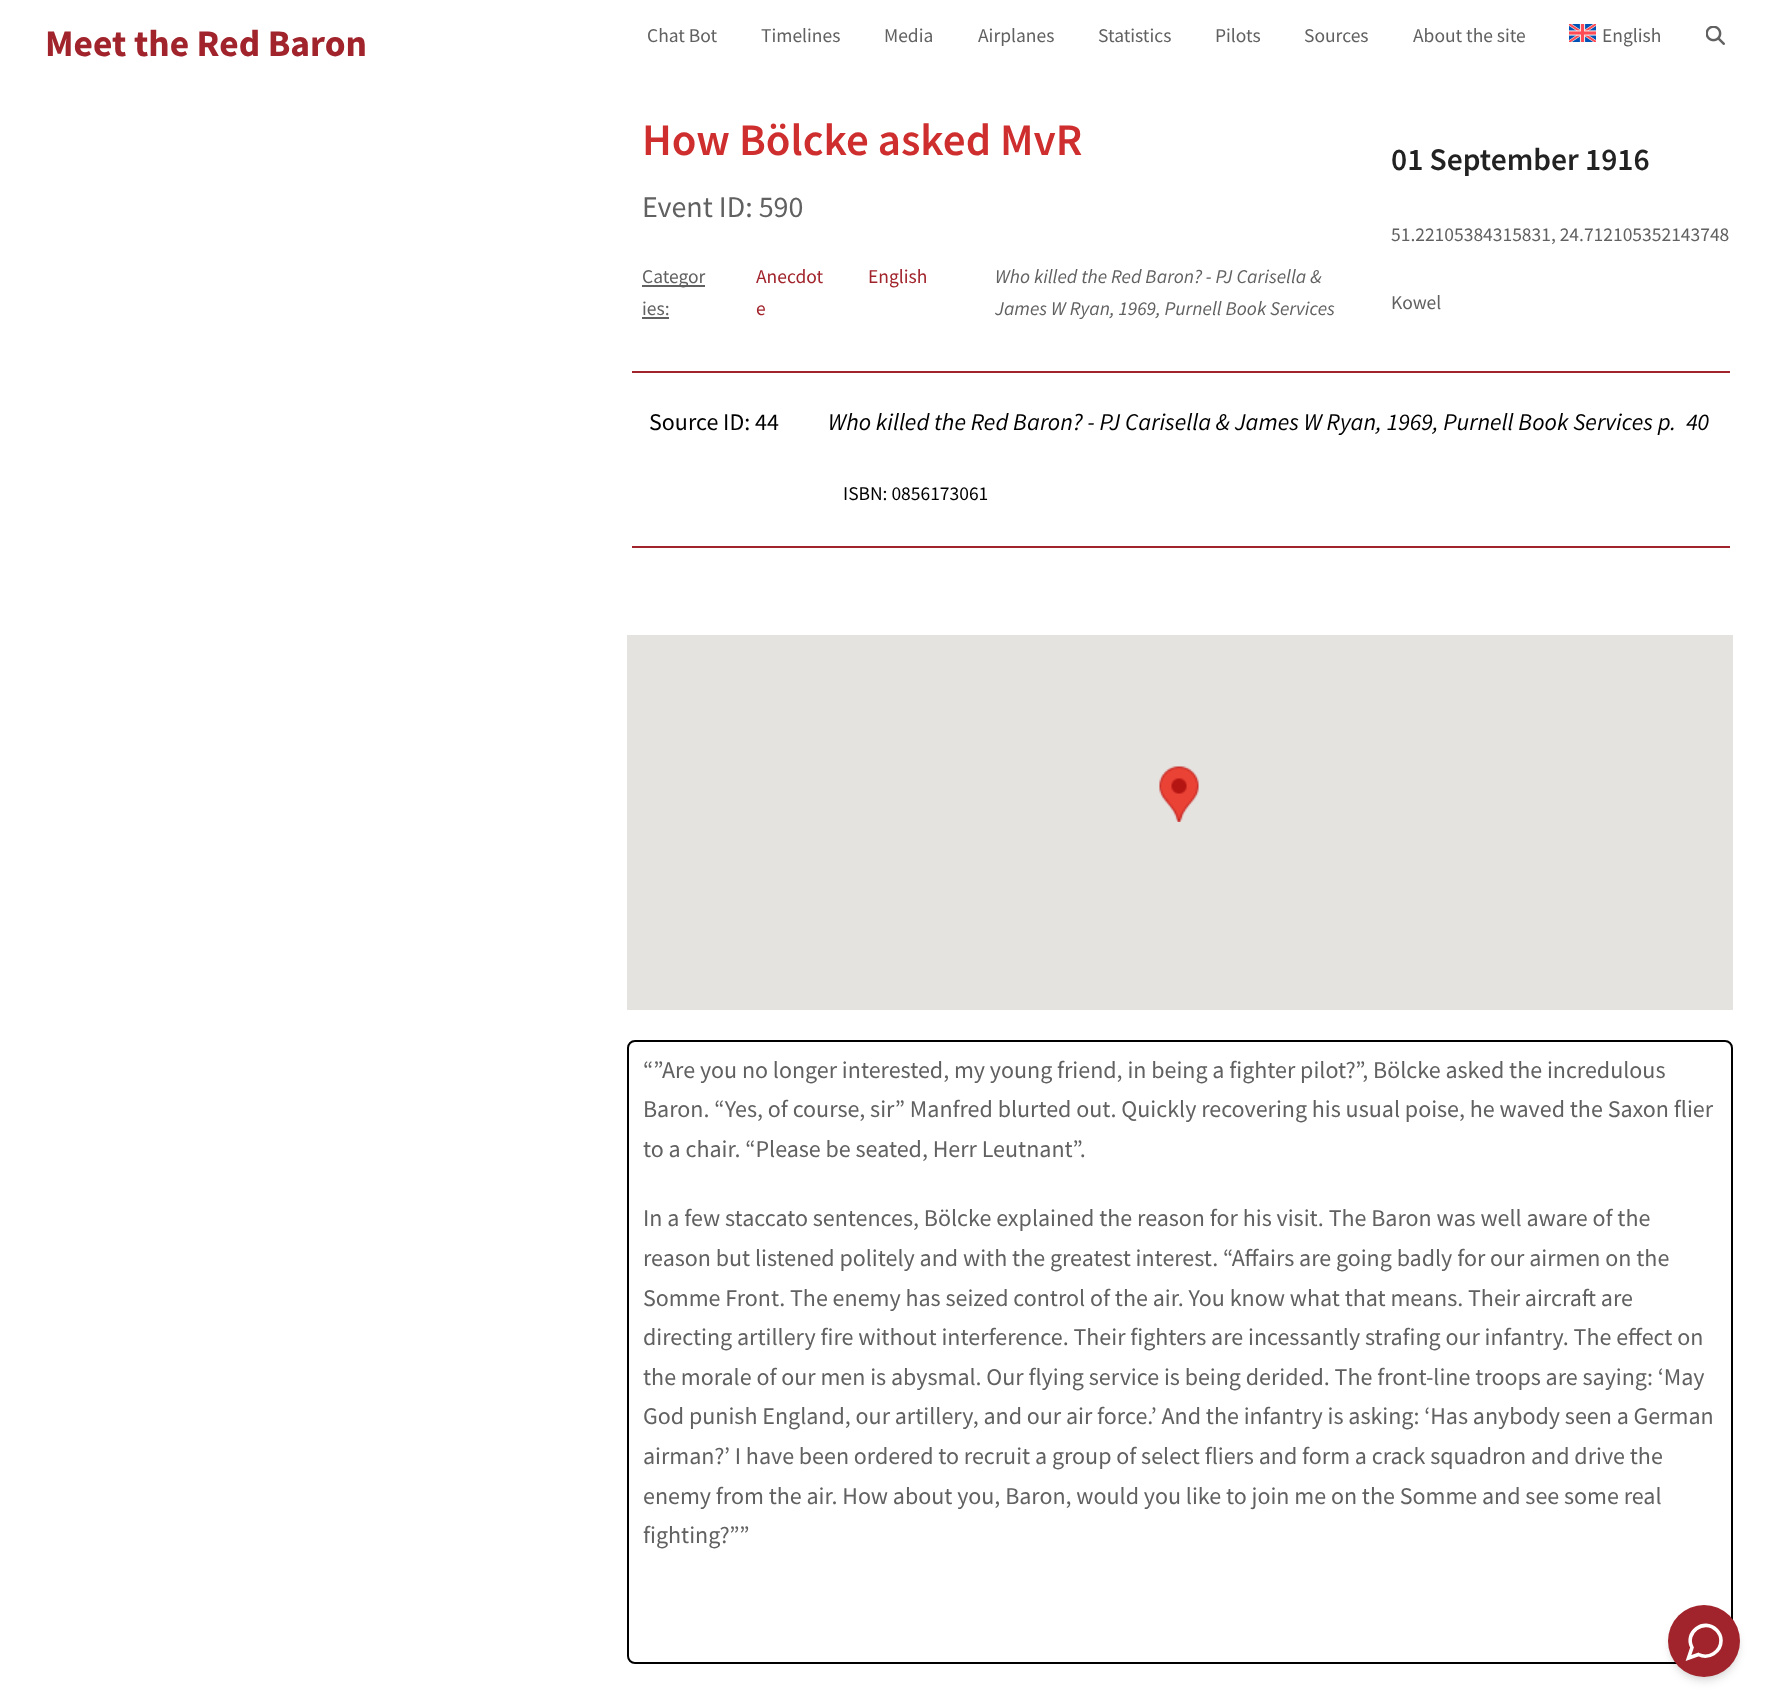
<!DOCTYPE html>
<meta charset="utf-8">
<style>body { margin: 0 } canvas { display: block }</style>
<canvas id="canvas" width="1770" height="1706"></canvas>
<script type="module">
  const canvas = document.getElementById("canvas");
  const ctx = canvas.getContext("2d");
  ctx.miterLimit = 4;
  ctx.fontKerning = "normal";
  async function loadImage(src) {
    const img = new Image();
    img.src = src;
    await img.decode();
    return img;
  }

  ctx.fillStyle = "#ffffff";
  ctx.fillRect(0, 0, 1770, 1706);
  ctx.font = "bold 37.5px Source Sans Pro";
  ctx.fillStyle = "#a1232b";
  ctx.fillText("Meet the Red Baron", 45, 56);
  ctx.font = "19.5px Source Sans Pro";
  ctx.fillStyle = "#616161";
  ctx.fillText("Chat Bot", 647, 42);
  ctx.fillText("Timelines", 761, 42);
  ctx.fillText("Media", 884, 42);
  ctx.fillText("Airplanes", 978, 42);
  ctx.fillText("Statistics", 1098, 42);
  ctx.fillText("Pilots", 1215, 42);
  ctx.fillText("Sources", 1304, 42);
  ctx.fillText("About the site", 1413, 42);
  ctx.drawImage(await loadImage("img1.png"), 1569, 24, 27, 18);
  ctx.fillText("English", 1602, 42);
  ctx.drawImage(await loadImage("img2.png"), 1706, 26, 19, 19);
  ctx.font = "600 45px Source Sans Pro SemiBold";
  ctx.fillStyle = "#cf2e2e";
  ctx.fillText("How Bölcke asked MvR", 642, 155);
  ctx.font = "30px Source Sans Pro";
  ctx.fillStyle = "#616161";
  ctx.fillText("Event ID: 590", 642, 217);
  ctx.fillRect(642, 285, 63, 2);
  ctx.font = "19.5px Source Sans Pro";
  ctx.fillText("Categor", 642, 283);
  ctx.fillText("ies:", 642, 315);
  ctx.fillRect(642, 317, 27, 2);
  ctx.fillStyle = "#a1232b";
  ctx.fillText("Anecdot", 756, 283);
  ctx.fillText("e", 756, 315);
  ctx.fillText("English", 868, 283);
  ctx.font = "italic 19.5px Source Sans Pro";
  ctx.fillStyle = "#616161";
  ctx.fillText("Who killed the Red Baron? - PJ Carisella &", 995, 283);
  ctx.fillText("James W Ryan, 1969, Purnell Book Services", 995, 315);
  ctx.font = "600 31.5px Source Sans Pro SemiBold";
  ctx.fillStyle = "#222222";
  ctx.fillText("01 September 1916", 1391, 170);
  ctx.font = "19.5px Source Sans Pro";
  ctx.fillStyle = "#616161";
  ctx.fillText("51.22105384315831, 24.712105352143748", 1391, 241);
  ctx.fillText("Kowel", 1391, 309);
  ctx.fillStyle = "#a1232b";
  ctx.fillRect(632, 371, 1098, 2);
  ctx.fillRect(632, 546, 1098, 2);
  ctx.font = "24px Source Sans Pro";
  ctx.fillStyle = "#000000";
  ctx.fillText("Source ID: 44", 649, 430);
  ctx.font = "italic 24px Source Sans Pro";
  ctx.fillText("Who killed the Red Baron? - PJ Carisella & James W Ryan, 1969, Purnell Book Services p.", 828, 430);
  ctx.fillText("40", 1686, 430);
  ctx.font = "19.5px Source Sans Pro";
  ctx.fillText("ISBN: 0856173061", 843, 500);
  ctx.fillStyle = "#e5e3df";
  ctx.fillRect(627, 635, 1106, 375);
  ctx.drawImage(await loadImage("img3.png"), 1159, 766, 40, 56);
  ctx.beginPath();
  ctx.roundRect(628, 1041, 1104, 622, 7);
  ctx.strokeStyle = "#000000";
  ctx.lineWidth = 2;
  ctx.stroke();
  ctx.font = "24px Source Sans Pro";
  ctx.fillStyle = "#616161";
  ctx.fillText("“”Are you no longer interested, my young friend, in being a fighter pilot?”, Bölcke asked the incredulous", 643, 1078);
  ctx.fillText("Baron. “Yes, of course, sir” Manfred blurted out. Quickly recovering his usual poise, he waved the Saxon flier", 643, 1117);
  ctx.fillText("to a chair. “Please be seated, Herr Leutnant”.", 643, 1157);
  ctx.fillText("In a few staccato sentences, Bölcke explained the reason for his visit. The Baron was well aware of the", 643, 1226);
  ctx.fillText("reason but listened politely and with the greatest interest. “Affairs are going badly for our airmen on the", 643, 1266);
  ctx.fillText("Somme Front. The enemy has seized control of the air. You know what that means. Their aircraft are", 643, 1306);
  ctx.fillText("directing artillery fire without interference. Their fighters are incessantly strafing our infantry. The effect on", 643, 1345);
  ctx.fillText("the morale of our men is abysmal. Our flying service is being derided. The front-line troops are saying: ‘May", 643, 1385);
  ctx.fillText("God punish England, our artillery, and our air force.’ And the infantry is asking: ‘Has anybody seen a German", 643, 1424);
  ctx.fillText("airman?’ I have been ordered to recruit a group of select fliers and form a crack squadron and drive the", 643, 1464);
  ctx.fillText("enemy from the air. How about you, Baron, would you like to join me on the Somme and see some real", 643, 1504);
  ctx.fillText("fighting?””", 643, 1543);
  ctx.fillStyle = "rgba(0, 0, 0, 0.1)";
  ctx.filter = "blur(3px)";
  ctx.beginPath();
  ctx.roundRect(1671, 1611, 66, 66, 33);
  ctx.fill();
  ctx.filter = "none";
  ctx.filter = "blur(4.5px)";
  ctx.beginPath();
  ctx.roundRect(1670, 1613, 69, 69, 34.5);
  ctx.fill();
  ctx.filter = "none";
  ctx.fillStyle = "#a1232b";
  ctx.beginPath();
  ctx.arc(1704, 1641, 36, 0, Math.PI * 2);
  ctx.fill();
  ctx.beginPath();
  ctx.moveTo(1721, 1640.5);
  ctx.bezierCurveTo(1721, 1652, 1708.5, 1659.5, 1698.5, 1654.5);
  ctx.lineTo(1688.5, 1658);
  ctx.lineTo(1692, 1647.5);
  ctx.bezierCurveTo(1684, 1632.5, 1704, 1617.5, 1716.5, 1630);
  ctx.bezierCurveTo(1719, 1632.5, 1721, 1636.5, 1721, 1640.5);
  ctx.closePath();
  ctx.strokeStyle = "#ffffff";
  ctx.lineWidth = 3.6;
  ctx.stroke();
</script>
